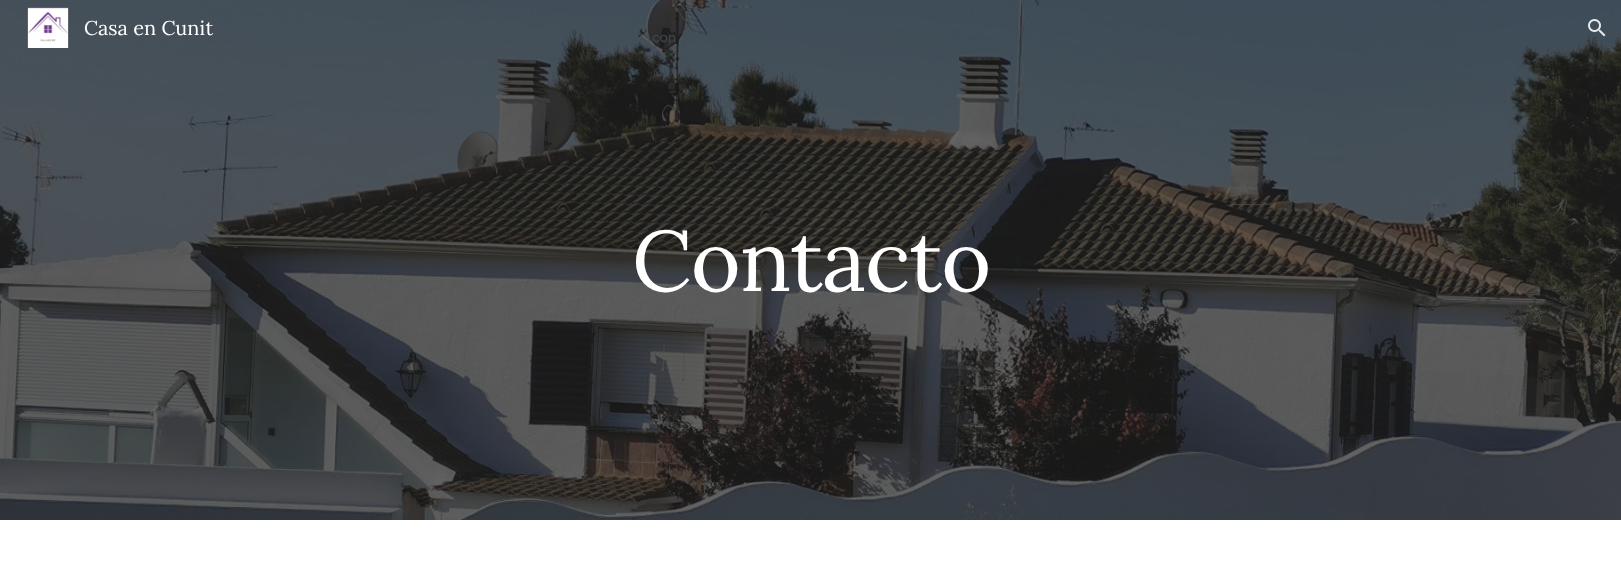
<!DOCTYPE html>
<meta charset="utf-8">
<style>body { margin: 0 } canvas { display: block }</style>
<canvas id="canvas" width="1621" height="570"></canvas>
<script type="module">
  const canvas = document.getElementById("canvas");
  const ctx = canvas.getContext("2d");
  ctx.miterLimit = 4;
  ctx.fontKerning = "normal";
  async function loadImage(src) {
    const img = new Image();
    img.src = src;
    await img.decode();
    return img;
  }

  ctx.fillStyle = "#ffffff";
  ctx.fillRect(0, 0, 1621, 570);
  ctx.drawImage(await loadImage("img3.png"), 0, 0, 1621, 520);
  ctx.drawImage(await loadImage("img1.png"), 27, 7, 42, 41);
  ctx.font = "20px Lora";
  ctx.fillText("Casa en Cunit", 84, 35);
  ctx.drawImage(await loadImage("img2.png"), 1588, 19, 18, 18);
  ctx.letterSpacing = "-1px";
  ctx.font = "85.5px Lora";
  ctx.fillText("Contacto", 632, 291);
  ctx.letterSpacing = "0px";
  ctx.font = "500 14px Google Sans";
  ctx.fillStyle = "#3c444b";
  ctx.fillText("con", 652, 42);
</script>
